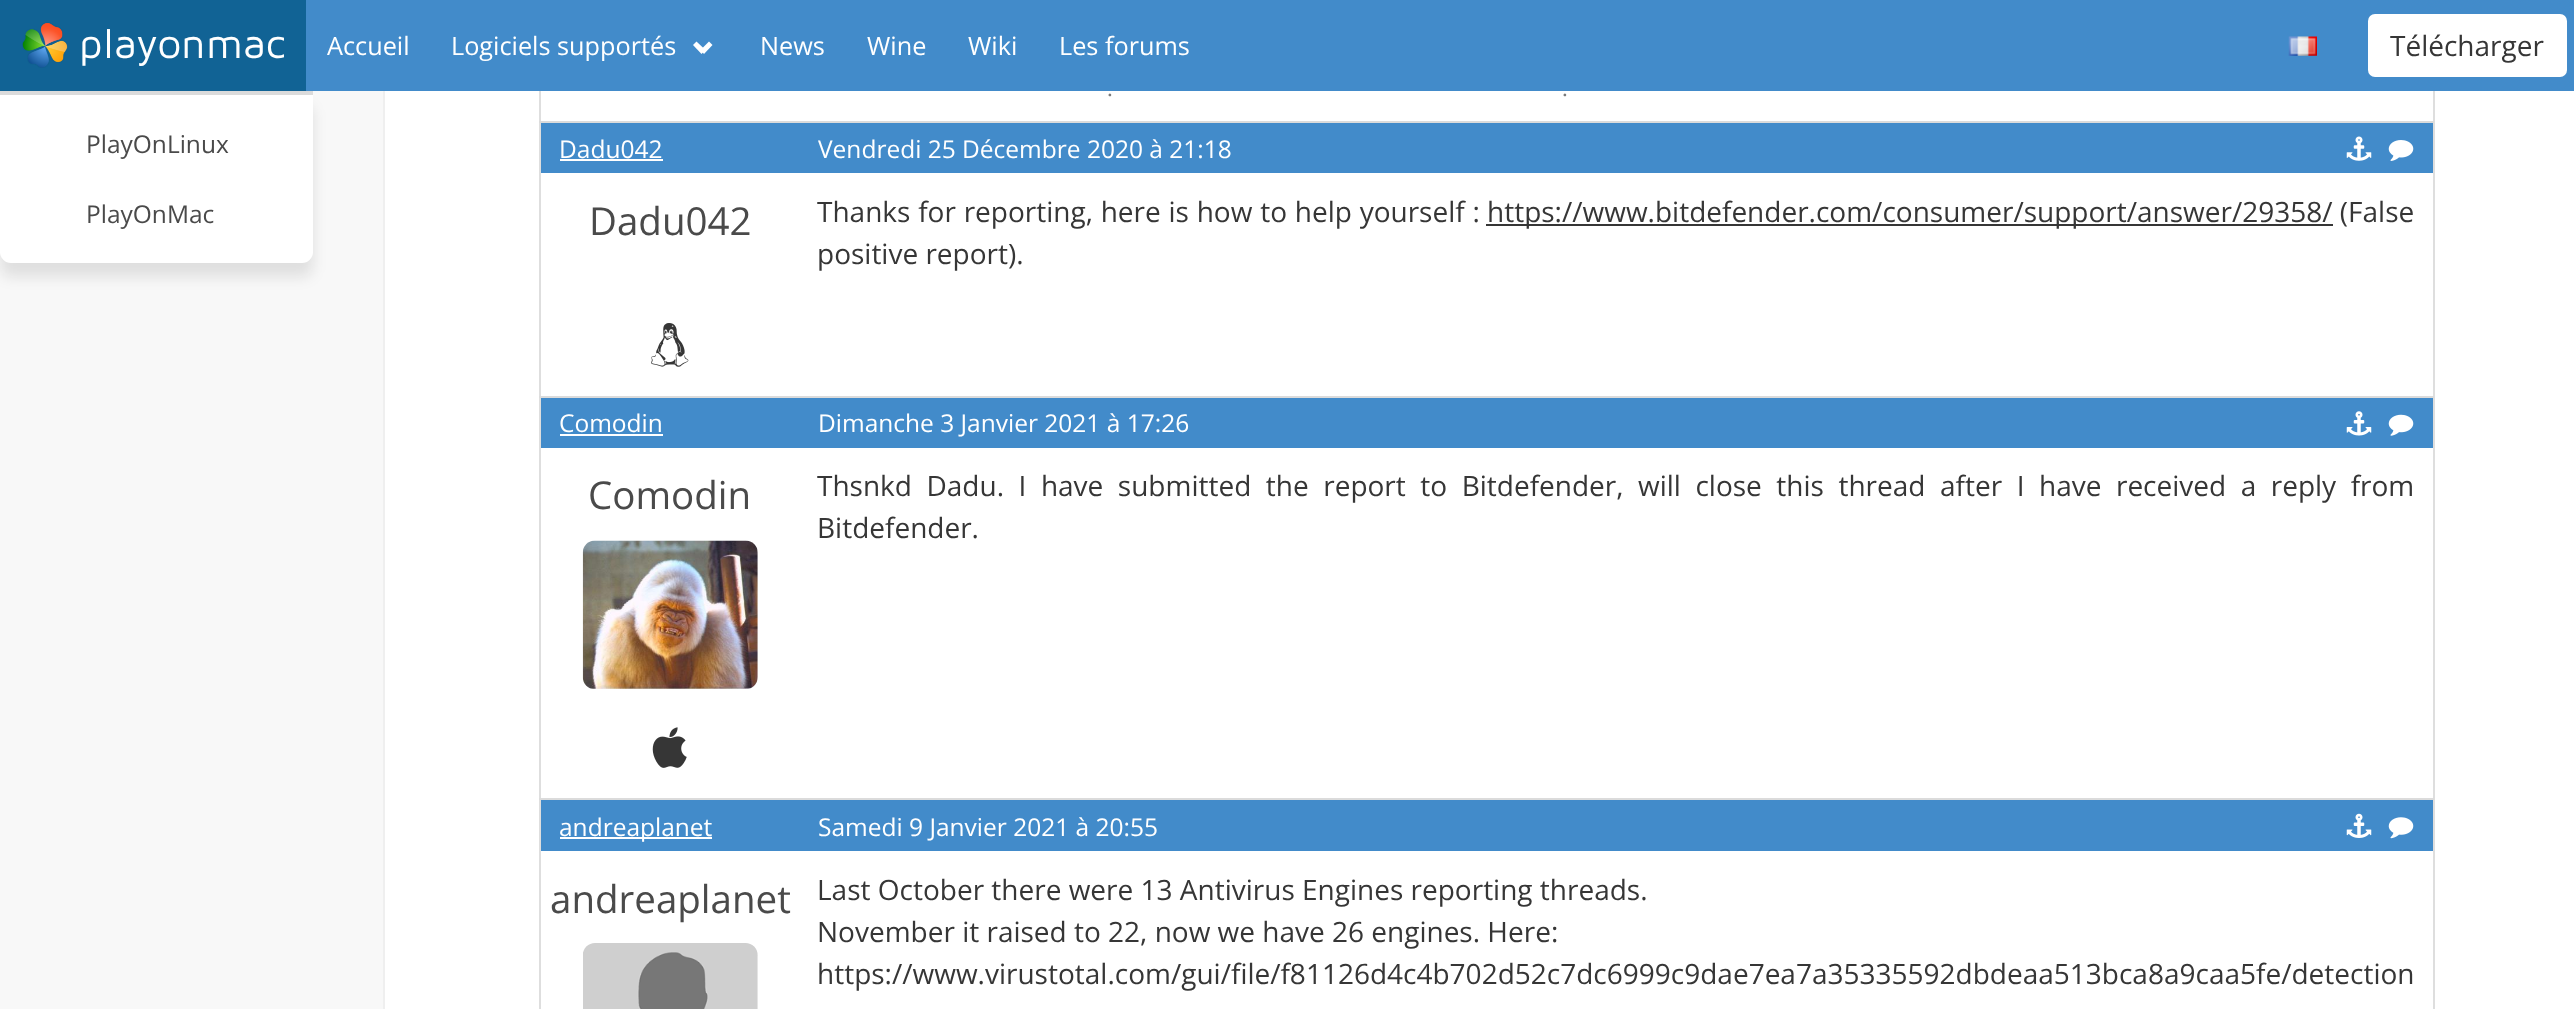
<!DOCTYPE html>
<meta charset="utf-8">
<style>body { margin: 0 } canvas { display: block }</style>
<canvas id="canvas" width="2574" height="1009"></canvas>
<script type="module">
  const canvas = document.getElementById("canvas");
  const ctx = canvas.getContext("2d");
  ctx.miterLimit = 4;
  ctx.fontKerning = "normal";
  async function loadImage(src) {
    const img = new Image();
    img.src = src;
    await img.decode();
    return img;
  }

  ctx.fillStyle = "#ffffff";
  ctx.fillRect(0, 0, 2574, 1009);
  ctx.fillStyle = "#428bca";
  ctx.fillRect(306, 0, 2268, 91);
  ctx.fillStyle = "#116395";
  ctx.fillRect(0, 0, 306, 91);
  ctx.drawImage(await loadImage("img1.png"), 22, 22, 46, 46);
  ctx.font = "42px Maven Pro";
  ctx.fillStyle = "#ffffff";
  ctx.fillText("playonmac", 79, 58);
  ctx.fillStyle = "#f8f8f8";
  ctx.fillRect(0, 91, 383, 918);
  ctx.fillStyle = "rgba(10, 10, 10, 0.1)";
  ctx.filter = "blur(7px)";
  ctx.beginPath();
  ctx.roundRect(0, 105, 313, 172, 11);
  ctx.fill();
  ctx.filter = "none";
  ctx.fillStyle = "#ffffff";
  ctx.beginPath();
  ctx.roundRect(0, 91, 313, 172, [0, 0, 11, 11]);
  ctx.fill();
  ctx.fillStyle = "#dbdbdb";
  ctx.fillRect(0, 91, 313, 4);
  ctx.font = "24.5px Open Sans";
  ctx.fillStyle = "#4a4a4a";
  ctx.fillText("PlayOnLinux", 86, 153);
  ctx.fillText("PlayOnMac", 86, 223);
  ctx.font = "25.25px Open Sans";
  ctx.fillStyle = "#ffffff";
  ctx.fillText("Accueil", 327, 55);
  ctx.fillText("Logiciels supportés", 451, 55);
  ctx.beginPath();
  ctx.moveTo(700.5, 50);
  ctx.lineTo(709, 41.5);
  ctx.lineTo(712.5, 45);
  ctx.lineTo(704, 54);
  ctx.closePath();
  ctx.fill();
  ctx.beginPath();
  ctx.moveTo(693, 45);
  ctx.lineTo(696.5, 41.5);
  ctx.lineTo(705.5, 50);
  ctx.lineTo(701.5, 54);
  ctx.closePath();
  ctx.fill();
  ctx.fillText("News", 760, 55);
  ctx.fillText("Wine", 867, 55);
  ctx.fillText("Wiki", 968, 55);
  ctx.fillText("Les forums", 1059, 55);
  ctx.drawImage(await loadImage("img2.png"), 2288, 36, 29, 20);
  ctx.beginPath();
  ctx.roundRect(2368, 14, 199, 63, 7);
  ctx.fill();
  ctx.font = "28px Open Sans";
  ctx.fillStyle = "#363636";
  ctx.fillText("Télécharger", 2390, 56);
  ctx.fillStyle = "#efefef";
  ctx.fillRect(383, 91, 2, 918);
  ctx.fillStyle = "#dedede";
  ctx.fillRect(2433, 91, 2, 918);
  ctx.fillRect(539, 91, 2, 918);
  ctx.fillStyle = "#dbdbdb";
  ctx.fillRect(539, 121, 1895, 2);
  ctx.font = "23px Liberation Serif";
  ctx.fillStyle = "#7a7a7a";
  ctx.fillText(".", 1107, 96);
  ctx.fillText(".", 1562, 96);
  ctx.fillStyle = "#428bca";
  ctx.fillRect(541, 123, 1892, 50);
  ctx.font = "24.5px Open Sans";
  ctx.fillStyle = "#ffffff";
  ctx.fillText("Dadu042", 559, 158);
  ctx.fillRect(560, 159, 103, 2);
  ctx.fillText("Vendredi 25 Décembre 2020 à 21:18", 818, 158);
  ctx.drawImage(await loadImage("img3.png"), 2346, 136, 26, 25);
  ctx.drawImage(await loadImage("img4.png"), 2388, 140, 26, 21);
  ctx.font = "38.5px Open Sans";
  ctx.fillStyle = "#4a4a4a";
  ctx.fillText("Dadu042", 589, 235);
  ctx.drawImage(await loadImage("img5.png"), 651, 323, 38, 44);
  ctx.fillStyle = "#dbdbdb";
  ctx.fillRect(539, 396, 1895, 2);
  ctx.wordSpacing = "0.5px";
  ctx.font = "28px Open Sans";
  ctx.fillStyle = "#363636";
  ctx.fillText("Thanks for reporting, here is how to help yourself :", 817, 222);
  ctx.fillRect(1486, 224, 847, 2);
  ctx.wordSpacing = "0px";
  ctx.fillText("https://www.bitdefender.com/consumer/support/answer/29358/ (False", 1487, 222);
  ctx.fillText("positive report).", 817, 264);
  ctx.fillStyle = "#428bca";
  ctx.fillRect(541, 398, 1892, 50);
  ctx.font = "24.5px Open Sans";
  ctx.fillStyle = "#ffffff";
  ctx.fillText("Comodin", 559, 432);
  ctx.fillRect(560, 434, 103, 2);
  ctx.fillText("Dimanche 3 Janvier 2021 à 17:26", 818, 432);
  ctx.drawImage(await loadImage("img6.png"), 2346, 411, 26, 25);
  ctx.drawImage(await loadImage("img7.png"), 2388, 414, 26, 22);
  ctx.font = "38.5px Open Sans";
  ctx.fillStyle = "#4a4a4a";
  ctx.fillText("Comodin", 588, 509);
  ctx.drawImage(await loadImage("img8.png"), 582, 540, 176, 149);
  ctx.drawImage(await loadImage("img9.png"), 652, 727, 35, 41);
  ctx.fillStyle = "#dbdbdb";
  ctx.fillRect(539, 798, 1895, 2);
  ctx.wordSpacing = "7.25px";
  ctx.font = "28px Open Sans";
  ctx.fillStyle = "#363636";
  ctx.fillText("Thsnkd Dadu. I have submitted the report to Bitdefender, will close this thread after I have received a reply from", 817, 496);
  ctx.wordSpacing = "0px";
  ctx.fillText("Bitdefender.", 817, 538);
  ctx.fillStyle = "#428bca";
  ctx.fillRect(541, 800, 1892, 51);
  ctx.fillStyle = "#ffffff";
  ctx.fillRect(560, 837, 152, 2);
  ctx.font = "24.5px Open Sans";
  ctx.fillText("andreaplanet", 559, 836);
  ctx.fillText("Samedi 9 Janvier 2021 à 20:55", 818, 836);
  ctx.drawImage(await loadImage("img10.png"), 2346, 813, 26, 25);
  ctx.drawImage(await loadImage("img11.png"), 2388, 817, 26, 22);
  ctx.font = "38.5px Open Sans";
  ctx.fillStyle = "#4a4a4a";
  ctx.fillText("andreaplanet", 550, 913);
  ctx.drawImage(await loadImage("img12.png"), 583, 943, 175, 66);
  ctx.font = "28px Open Sans";
  ctx.fillStyle = "#363636";
  ctx.fillText("Last October there were 13 Antivirus Engines reporting threads.", 817, 900);
  ctx.fillText("November it raised to 22, now we have 26 engines. Here:", 817, 942);
  ctx.fillText("https://www.virustotal.com/gui/file/f81126d4c4b702d52c7dc6999c9dae7ea7a35335592dbdeaa513bca8a9caa5fe/detection", 817, 984);
</script>
